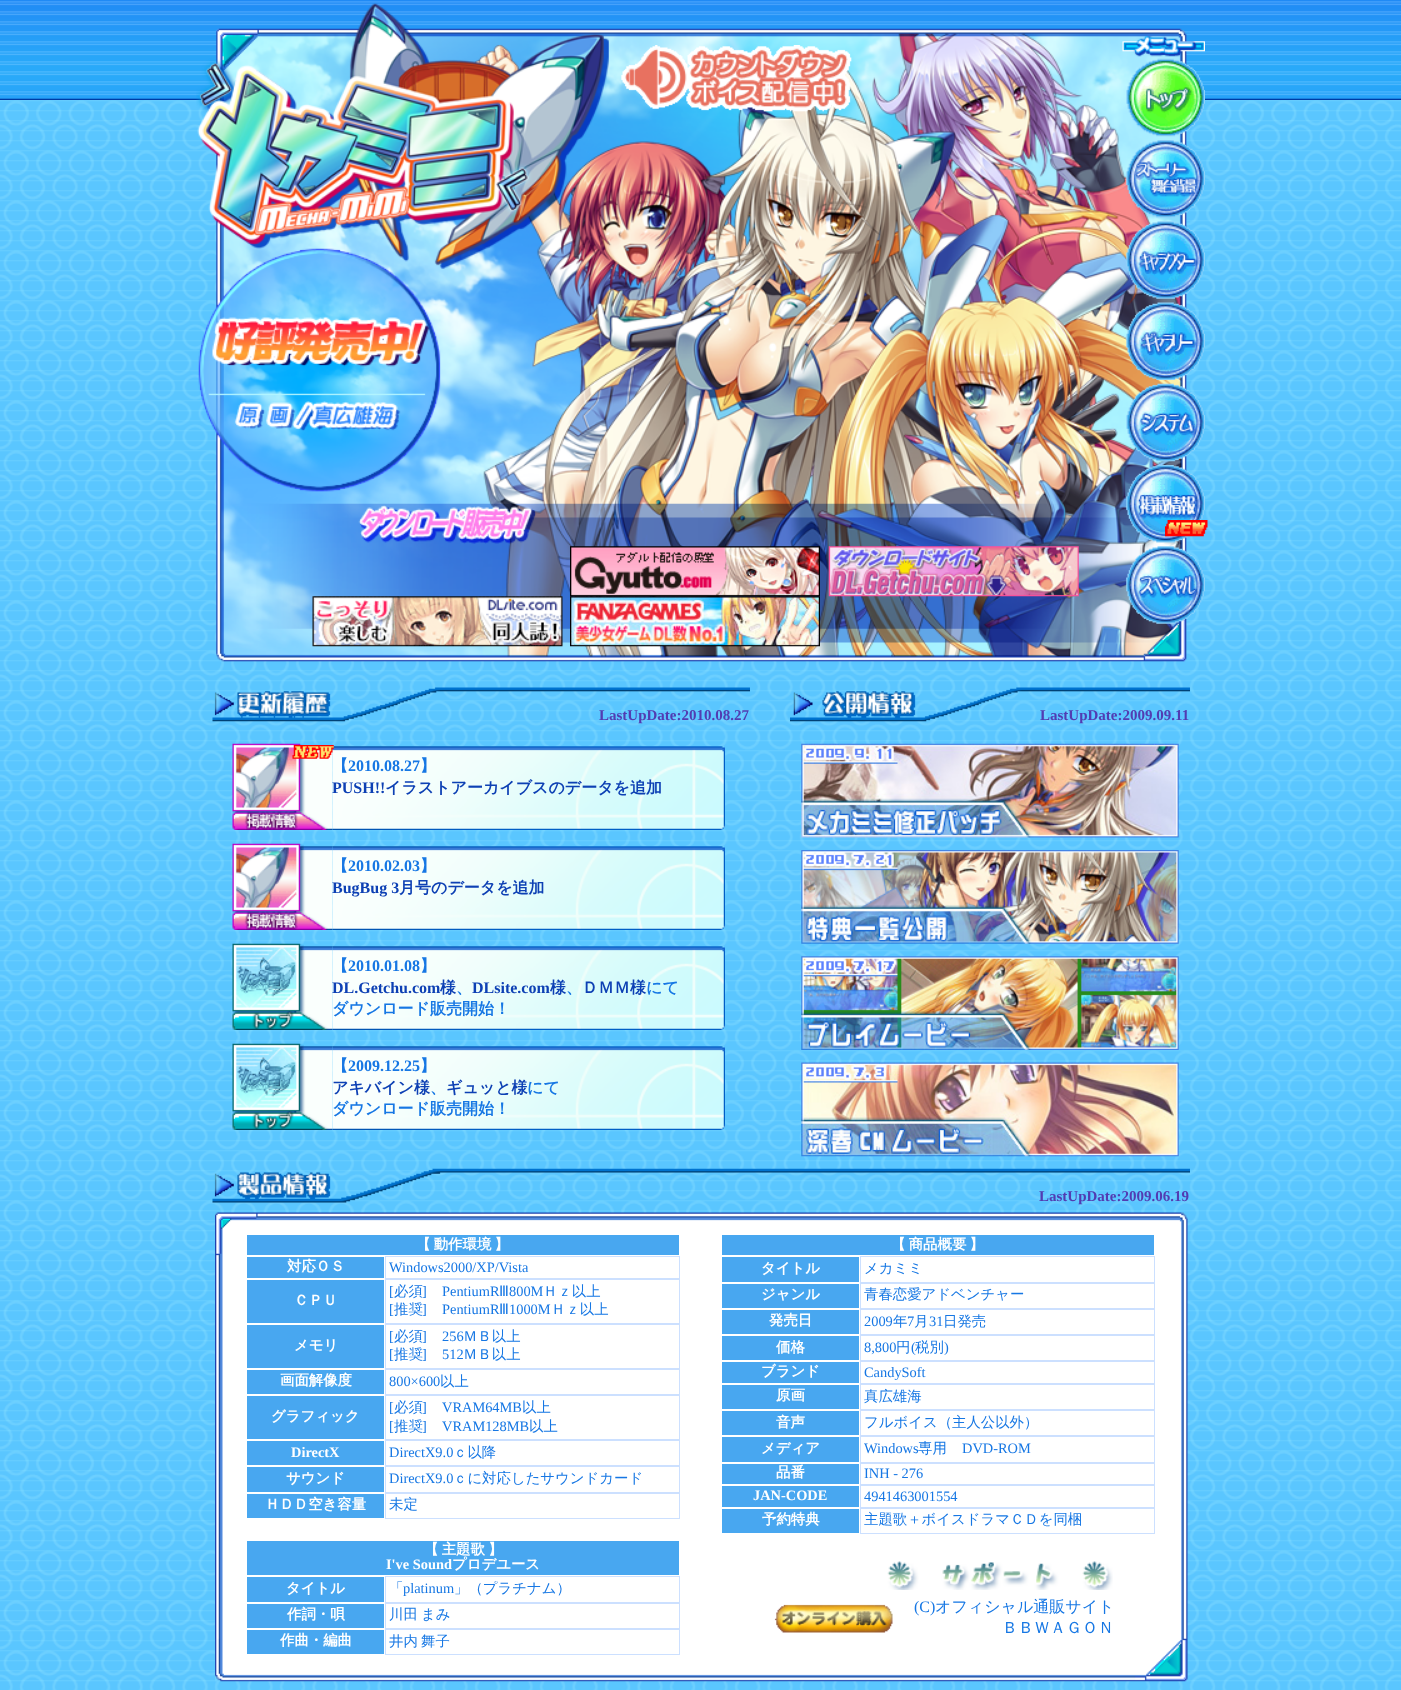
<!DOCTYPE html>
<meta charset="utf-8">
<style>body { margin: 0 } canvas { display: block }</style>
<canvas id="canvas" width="1401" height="1690"></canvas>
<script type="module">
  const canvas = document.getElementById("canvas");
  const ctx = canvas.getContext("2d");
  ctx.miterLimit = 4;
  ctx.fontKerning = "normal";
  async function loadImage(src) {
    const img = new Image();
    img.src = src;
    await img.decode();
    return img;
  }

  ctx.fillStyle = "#ffffff";
  ctx.fillRect(0, 0, 1401, 1690);
  ctx.drawImage(await loadImage("img1.png"), 0, 100, 1401, 1590);
  ctx.drawImage(await loadImage("img2.png"), 0, 0, 1401, 100);
  ctx.drawImage(await loadImage("img3.png"), 196, 3, 991, 659);
  ctx.drawImage(await loadImage("img4.png"), 621, 45, 231, 67);
  ctx.drawImage(await loadImage("img5.png"), 1122, 36, 83, 21);
  ctx.drawImage(await loadImage("img6.png"), 1126, 58, 79, 79);
  ctx.drawImage(await loadImage("img7.png"), 1126, 140, 79, 78);
  ctx.drawImage(await loadImage("img8.png"), 1126, 221, 79, 78);
  ctx.drawImage(await loadImage("img9.png"), 1126, 302, 79, 78);
  ctx.drawImage(await loadImage("img10.png"), 1126, 383, 79, 79);
  ctx.drawImage(await loadImage("img11.png"), 1126, 465, 79, 78);
  ctx.drawImage(await loadImage("img12.png"), 1126, 546, 79, 78);
  ctx.drawImage(await loadImage("img13.png"), 1165, 520, 43, 17);
  ctx.drawImage(await loadImage("img14.png"), 570, 546, 250, 51);
  ctx.drawImage(await loadImage("img15.png"), 828, 546, 251, 51);
  ctx.drawImage(await loadImage("img16.png"), 312, 596, 251, 51);
  ctx.drawImage(await loadImage("img17.png"), 570, 596, 250, 51);
  ctx.drawImage(await loadImage("img18.png"), 212, 687, 538, 35);
  ctx.font = "bold 15px Liberation Serif";
  ctx.fillStyle = "#523cb2";
  ctx.fillText("LastUpDate:2010.08.27", 599, 720);
  ctx.drawImage(await loadImage("img20.png"), 232, 743, 101, 87);
  ctx.drawImage(await loadImage("img21.png"), 332, 746, 393, 84);
  ctx.drawImage(await loadImage("img19.png"), 292, 745, 42, 14);
  ctx.font = "bold 16px WenQuanYi Zen Hei";
  ctx.fillStyle = "#1677e4";
  ctx.fillText("【", 332, 771);
  ctx.font = "bold 16px Liberation Serif";
  ctx.fillText("2010.08.27", 348, 771);
  ctx.font = "bold 16px WenQuanYi Zen Hei";
  ctx.fillText("】", 420, 771);
  ctx.font = "bold 16px Liberation Serif";
  ctx.fillStyle = "#0d40b4";
  ctx.fillText("PUSH!!", 332, 793);
  ctx.font = "bold 16px WenQuanYi Zen Hei";
  ctx.fillText("イラストアーカイブスのデータを追加", 385, 793);
  ctx.drawImage(await loadImage("img20.png"), 232, 843, 101, 87);
  ctx.drawImage(await loadImage("img21.png"), 332, 846, 393, 84);
  ctx.fillStyle = "#1677e4";
  ctx.fillText("【", 332, 871);
  ctx.font = "bold 16px Liberation Serif";
  ctx.fillText("2010.02.03", 348, 871);
  ctx.font = "bold 16px WenQuanYi Zen Hei";
  ctx.fillText("】", 420, 871);
  ctx.font = "bold 16px Liberation Serif";
  ctx.fillStyle = "#0d40b4";
  ctx.fillText("BugBug 3", 332, 893);
  ctx.font = "bold 16px WenQuanYi Zen Hei";
  ctx.fillText("月号のデータを追加", 399, 893);
  ctx.drawImage(await loadImage("img22.png"), 232, 943, 101, 87);
  ctx.drawImage(await loadImage("img23.png"), 332, 946, 393, 84);
  ctx.fillStyle = "#1677e4";
  ctx.fillText("【", 332, 971);
  ctx.font = "bold 16px Liberation Serif";
  ctx.fillText("2010.01.08", 348, 971);
  ctx.font = "bold 16px WenQuanYi Zen Hei";
  ctx.fillText("】", 420, 971);
  ctx.font = "bold 16px Liberation Serif";
  ctx.fillStyle = "#0d40b4";
  ctx.fillText("DL.Getchu.com", 332, 993);
  ctx.font = "bold 16px WenQuanYi Zen Hei";
  ctx.fillText("様", 440, 993);
  ctx.fillStyle = "#1677e4";
  ctx.fillText("、", 456, 993);
  ctx.font = "bold 16px Liberation Serif";
  ctx.fillStyle = "#0d40b4";
  ctx.fillText("DLsite.com", 472, 993);
  ctx.font = "bold 16px WenQuanYi Zen Hei";
  ctx.fillText("様", 550, 993);
  ctx.fillStyle = "#1677e4";
  ctx.fillText("、", 566, 993);
  ctx.fillStyle = "#0d40b4";
  ctx.fillText("ＤＭＭ様", 582, 993);
  ctx.fillStyle = "#1677e4";
  ctx.fillText("にて", 646, 993);
  ctx.fillText("ダウンロード販売開始！", 332, 1014);
  ctx.drawImage(await loadImage("img22.png"), 232, 1043, 101, 87);
  ctx.drawImage(await loadImage("img23.png"), 332, 1046, 393, 84);
  ctx.fillText("【", 332, 1071);
  ctx.font = "bold 16px Liberation Serif";
  ctx.fillText("2009.12.25", 348, 1071);
  ctx.font = "bold 16px WenQuanYi Zen Hei";
  ctx.fillText("】", 420, 1071);
  ctx.fillStyle = "#0d40b4";
  ctx.fillText("アキバイン様", 332, 1093);
  ctx.fillStyle = "#1677e4";
  ctx.fillText("、", 430, 1093);
  ctx.fillStyle = "#0d40b4";
  ctx.fillText("ギュッと様", 446, 1093);
  ctx.fillStyle = "#1677e4";
  ctx.fillText("にて", 527, 1093);
  ctx.fillText("ダウンロード販売開始！", 332, 1114);
  ctx.drawImage(await loadImage("img24.png"), 790, 687, 400, 35);
  ctx.font = "bold 15px Liberation Serif";
  ctx.fillStyle = "#523cb2";
  ctx.fillText("LastUpDate:2009.09.11", 1040, 720);
  ctx.drawImage(await loadImage("img25.png"), 801, 743, 378, 95);
  ctx.drawImage(await loadImage("img26.png"), 801, 850, 378, 94);
  ctx.drawImage(await loadImage("img27.png"), 801, 956, 378, 94);
  ctx.drawImage(await loadImage("img28.png"), 801, 1062, 378, 95);
  ctx.drawImage(await loadImage("img29.png"), 212, 1168, 978, 35);
  ctx.fillText("LastUpDate:2009.06.19", 1039, 1201);
  ctx.drawImage(await loadImage("img30.png"), 215, 1212, 973, 470);
  ctx.fillStyle = "#48a7f0";
  ctx.fillRect(247, 1235, 432, 20);
  ctx.wordSpacing = "-1px";
  ctx.font = "bold 14.4px WenQuanYi Zen Hei";
  ctx.fillStyle = "#ffffff";
  ctx.fillText("【 動作環境 】", 416, 1249);
  ctx.fillStyle = "#48a7f0";
  ctx.fillRect(247, 1257, 137, 21);
  ctx.wordSpacing = "0px";
  ctx.fillStyle = "#ffffff";
  ctx.fillText("対応ＯＳ", 287, 1271);
  ctx.strokeStyle = "#cce0ff";
  ctx.strokeRect(385.5, 1256.5, 294, 22);
  ctx.font = "14.4px Liberation Serif";
  ctx.fillStyle = "#1677e4";
  ctx.fillText("Windows2000/XP/Vista", 389, 1272);
  ctx.fillStyle = "#48a7f0";
  ctx.fillRect(247, 1280, 137, 43);
  ctx.font = "bold 14.4px WenQuanYi Zen Hei";
  ctx.fillStyle = "#ffffff";
  ctx.fillText("ＣＰＵ", 294, 1305);
  ctx.strokeRect(385.5, 1279.5, 294, 44);
  ctx.font = "14.4px Liberation Serif";
  ctx.fillStyle = "#1677e4";
  ctx.fillText("[", 389, 1296);
  ctx.font = "500 14.4px WenQuanYi Zen Hei";
  ctx.fillText("必須", 394, 1296);
  ctx.font = "14.4px Liberation Serif";
  ctx.fillText("]", 422, 1296);
  ctx.fillText("PentiumR", 442, 1296);
  ctx.font = "14.4px DejaVu Sans";
  ctx.fillText("Ⅲ", 499, 1296);
  ctx.font = "14.4px Liberation Serif";
  ctx.fillText("800M", 509, 1296);
  ctx.font = "500 14.4px WenQuanYi Zen Hei";
  ctx.fillText("Ｈｚ以上", 543, 1296);
  ctx.font = "14.4px Liberation Serif";
  ctx.fillText("[", 389, 1314);
  ctx.font = "500 14.4px WenQuanYi Zen Hei";
  ctx.fillText("推奨", 394, 1314);
  ctx.font = "14.4px Liberation Serif";
  ctx.fillText("]", 422, 1314);
  ctx.fillText("PentiumR", 442, 1314);
  ctx.font = "14.4px DejaVu Sans";
  ctx.fillText("Ⅲ", 499, 1314);
  ctx.font = "14.4px Liberation Serif";
  ctx.fillText("1000M", 509, 1314);
  ctx.font = "500 14.4px WenQuanYi Zen Hei";
  ctx.fillText("Ｈｚ以上", 551, 1314);
  ctx.fillStyle = "#48a7f0";
  ctx.fillRect(247, 1325, 137, 43);
  ctx.font = "bold 14.4px WenQuanYi Zen Hei";
  ctx.fillStyle = "#ffffff";
  ctx.fillText("メモリ", 294, 1350);
  ctx.strokeRect(385.5, 1324.5, 294, 44);
  ctx.font = "14.4px Liberation Serif";
  ctx.fillStyle = "#1677e4";
  ctx.fillText("[", 389, 1341);
  ctx.font = "500 14.4px WenQuanYi Zen Hei";
  ctx.fillText("必須", 394, 1341);
  ctx.font = "14.4px Liberation Serif";
  ctx.fillText("]", 422, 1341);
  ctx.fillText("256", 442, 1341);
  ctx.font = "500 14.4px WenQuanYi Zen Hei";
  ctx.fillText("ＭＢ以上", 463, 1341);
  ctx.font = "14.4px Liberation Serif";
  ctx.fillText("[", 389, 1359);
  ctx.font = "500 14.4px WenQuanYi Zen Hei";
  ctx.fillText("推奨", 394, 1359);
  ctx.font = "14.4px Liberation Serif";
  ctx.fillText("]", 422, 1359);
  ctx.fillText("512", 442, 1359);
  ctx.font = "500 14.4px WenQuanYi Zen Hei";
  ctx.fillText("ＭＢ以上", 463, 1359);
  ctx.fillStyle = "#48a7f0";
  ctx.fillRect(247, 1370, 137, 24);
  ctx.font = "bold 14.4px WenQuanYi Zen Hei";
  ctx.fillStyle = "#ffffff";
  ctx.fillText("画面解像度", 280, 1385);
  ctx.strokeRect(385.5, 1369.5, 294, 25);
  ctx.font = "14.4px Liberation Serif";
  ctx.fillStyle = "#1677e4";
  ctx.fillText("800×600", 389, 1386);
  ctx.font = "500 14.4px WenQuanYi Zen Hei";
  ctx.fillText("以上", 440, 1386);
  ctx.fillStyle = "#48a7f0";
  ctx.fillRect(247, 1396, 137, 43);
  ctx.font = "bold 14.4px WenQuanYi Zen Hei";
  ctx.fillStyle = "#ffffff";
  ctx.fillText("グラフィック", 271, 1421);
  ctx.strokeRect(385.5, 1395.5, 294, 44);
  ctx.font = "14.4px Liberation Serif";
  ctx.fillStyle = "#1677e4";
  ctx.fillText("[", 389, 1412);
  ctx.font = "500 14.4px WenQuanYi Zen Hei";
  ctx.fillText("必須", 394, 1412);
  ctx.font = "14.4px Liberation Serif";
  ctx.fillText("]", 422, 1412);
  ctx.fillText("VRAM64MB", 442, 1412);
  ctx.font = "500 14.4px WenQuanYi Zen Hei";
  ctx.fillText("以上", 522, 1412);
  ctx.font = "14.4px Liberation Serif";
  ctx.fillText("[", 389, 1431);
  ctx.font = "500 14.4px WenQuanYi Zen Hei";
  ctx.fillText("推奨", 394, 1431);
  ctx.font = "14.4px Liberation Serif";
  ctx.fillText("]", 422, 1431);
  ctx.fillText("VRAM128MB", 442, 1431);
  ctx.font = "500 14.4px WenQuanYi Zen Hei";
  ctx.fillText("以上", 529, 1431);
  ctx.fillStyle = "#48a7f0";
  ctx.fillRect(247, 1441, 137, 24);
  ctx.font = "bold 14.4px Liberation Serif";
  ctx.fillStyle = "#ffffff";
  ctx.fillText("DirectX", 291, 1457);
  ctx.strokeRect(385.5, 1440.5, 294, 25);
  ctx.font = "14.4px Liberation Serif";
  ctx.fillStyle = "#1677e4";
  ctx.fillText("DirectX9.0", 389, 1457);
  ctx.font = "500 14.4px WenQuanYi Zen Hei";
  ctx.fillText("ｃ以降", 453, 1457);
  ctx.fillStyle = "#48a7f0";
  ctx.fillRect(247, 1467, 137, 25);
  ctx.font = "bold 14.4px WenQuanYi Zen Hei";
  ctx.fillStyle = "#ffffff";
  ctx.fillText("サウンド", 286, 1483);
  ctx.strokeRect(385.5, 1466.5, 294, 26);
  ctx.font = "14.4px Liberation Serif";
  ctx.fillStyle = "#1677e4";
  ctx.fillText("DirectX9.0", 389, 1483);
  ctx.font = "500 14.4px WenQuanYi Zen Hei";
  ctx.fillText("ｃに対応したサウンドカード", 453, 1483);
  ctx.fillStyle = "#48a7f0";
  ctx.fillRect(247, 1494, 137, 24);
  ctx.font = "bold 14.4px WenQuanYi Zen Hei";
  ctx.fillStyle = "#ffffff";
  ctx.fillText("ＨＤＤ空き容量", 265, 1509);
  ctx.strokeRect(385.5, 1493.5, 294, 25);
  ctx.font = "500 14.4px WenQuanYi Zen Hei";
  ctx.fillStyle = "#1677e4";
  ctx.fillText("未定", 389, 1509);
  ctx.fillStyle = "#48a7f0";
  ctx.fillRect(247, 1541, 432, 34);
  ctx.wordSpacing = "-1px";
  ctx.font = "bold 14.4px WenQuanYi Zen Hei";
  ctx.fillStyle = "#ffffff";
  ctx.fillText("【 主題歌 】", 424, 1554);
  ctx.wordSpacing = "0px";
  ctx.font = "bold 14.4px Liberation Serif";
  ctx.fillText("I've Sound", 386, 1569);
  ctx.font = "bold 14.4px WenQuanYi Zen Hei";
  ctx.fillText("プロデユース", 452, 1569);
  ctx.fillStyle = "#48a7f0";
  ctx.fillRect(247, 1577, 137, 25);
  ctx.fillStyle = "#ffffff";
  ctx.fillText("タイトル", 286, 1593);
  ctx.strokeRect(385.5, 1576.5, 294, 26);
  ctx.font = "500 14.4px WenQuanYi Zen Hei";
  ctx.fillStyle = "#1677e4";
  ctx.fillText("「", 389, 1593);
  ctx.font = "14.4px Liberation Serif";
  ctx.fillText("platinum", 403, 1593);
  ctx.font = "500 14.4px WenQuanYi Zen Hei";
  ctx.fillText("」（プラチナム）", 454, 1593);
  ctx.fillStyle = "#48a7f0";
  ctx.fillRect(247, 1604, 137, 24);
  ctx.font = "bold 14.4px WenQuanYi Zen Hei";
  ctx.fillStyle = "#ffffff";
  ctx.fillText("作詞・唄", 287, 1619);
  ctx.strokeRect(385.5, 1603.5, 294, 25);
  ctx.wordSpacing = "-1px";
  ctx.font = "500 14.4px WenQuanYi Zen Hei";
  ctx.fillStyle = "#1677e4";
  ctx.fillText("川田 まみ", 389, 1619);
  ctx.fillStyle = "#48a7f0";
  ctx.fillRect(247, 1630, 137, 24);
  ctx.wordSpacing = "0px";
  ctx.font = "bold 14.4px WenQuanYi Zen Hei";
  ctx.fillStyle = "#ffffff";
  ctx.fillText("作曲・編曲", 280, 1645);
  ctx.strokeRect(385.5, 1629.5, 294, 25);
  ctx.wordSpacing = "-1px";
  ctx.font = "500 14.4px WenQuanYi Zen Hei";
  ctx.fillStyle = "#1677e4";
  ctx.fillText("井内 舞子", 389, 1646);
  ctx.fillStyle = "#48a7f0";
  ctx.fillRect(722, 1235, 432, 20);
  ctx.font = "bold 14.4px WenQuanYi Zen Hei";
  ctx.fillStyle = "#ffffff";
  ctx.fillText("【 商品概要 】", 891, 1249);
  ctx.fillStyle = "#48a7f0";
  ctx.fillRect(722, 1257, 137, 25);
  ctx.wordSpacing = "0px";
  ctx.fillStyle = "#ffffff";
  ctx.fillText("タイトル", 761, 1273);
  ctx.strokeRect(860.5, 1256.5, 294, 26);
  ctx.font = "500 14.4px WenQuanYi Zen Hei";
  ctx.fillStyle = "#1677e4";
  ctx.fillText("メカミミ", 864, 1273);
  ctx.fillStyle = "#48a7f0";
  ctx.fillRect(722, 1284, 137, 24);
  ctx.font = "bold 14.4px WenQuanYi Zen Hei";
  ctx.fillStyle = "#ffffff";
  ctx.fillText("ジャンル", 761, 1299);
  ctx.strokeRect(860.5, 1283.5, 294, 25);
  ctx.font = "500 14.4px WenQuanYi Zen Hei";
  ctx.fillStyle = "#1677e4";
  ctx.fillText("青春恋愛アドベンチャー", 864, 1299);
  ctx.fillStyle = "#48a7f0";
  ctx.fillRect(722, 1310, 137, 24);
  ctx.font = "bold 14.4px WenQuanYi Zen Hei";
  ctx.fillStyle = "#ffffff";
  ctx.fillText("発売日", 769, 1325);
  ctx.strokeRect(860.5, 1309.5, 294, 25);
  ctx.font = "14.4px Liberation Serif";
  ctx.fillStyle = "#1677e4";
  ctx.fillText("2009", 864, 1326);
  ctx.font = "500 14.4px WenQuanYi Zen Hei";
  ctx.fillText("年", 893, 1326);
  ctx.font = "14.4px Liberation Serif";
  ctx.fillText("7", 907, 1326);
  ctx.font = "500 14.4px WenQuanYi Zen Hei";
  ctx.fillText("月", 914, 1326);
  ctx.font = "14.4px Liberation Serif";
  ctx.fillText("31", 929, 1326);
  ctx.font = "500 14.4px WenQuanYi Zen Hei";
  ctx.fillText("日発売", 943, 1326);
  ctx.fillStyle = "#48a7f0";
  ctx.fillRect(722, 1336, 137, 24);
  ctx.font = "bold 14.4px WenQuanYi Zen Hei";
  ctx.fillStyle = "#ffffff";
  ctx.fillText("価格", 776, 1352);
  ctx.strokeRect(860.5, 1335.5, 294, 25);
  ctx.font = "14.4px Liberation Serif";
  ctx.fillStyle = "#1677e4";
  ctx.fillText("8,800", 864, 1352);
  ctx.font = "500 14.4px WenQuanYi Zen Hei";
  ctx.fillText("円", 896, 1352);
  ctx.font = "14.4px Liberation Serif";
  ctx.fillText("(", 911, 1352);
  ctx.font = "500 14.4px WenQuanYi Zen Hei";
  ctx.fillText("税別", 915, 1352);
  ctx.font = "14.4px Liberation Serif";
  ctx.fillText(")", 944, 1352);
  ctx.fillStyle = "#48a7f0";
  ctx.fillRect(722, 1362, 137, 21);
  ctx.font = "bold 14.4px WenQuanYi Zen Hei";
  ctx.fillStyle = "#ffffff";
  ctx.fillText("ブランド", 761, 1376);
  ctx.strokeRect(860.5, 1361.5, 294, 22);
  ctx.font = "14.4px Liberation Serif";
  ctx.fillStyle = "#1677e4";
  ctx.fillText("CandySoft", 864, 1377);
  ctx.fillStyle = "#48a7f0";
  ctx.fillRect(722, 1385, 137, 24);
  ctx.font = "bold 14.4px WenQuanYi Zen Hei";
  ctx.fillStyle = "#ffffff";
  ctx.fillText("原画", 776, 1400);
  ctx.strokeRect(860.5, 1384.5, 294, 25);
  ctx.font = "500 14.4px WenQuanYi Zen Hei";
  ctx.fillStyle = "#1677e4";
  ctx.fillText("真広雄海", 864, 1401);
  ctx.fillStyle = "#48a7f0";
  ctx.fillRect(722, 1411, 137, 24);
  ctx.font = "bold 14.4px WenQuanYi Zen Hei";
  ctx.fillStyle = "#ffffff";
  ctx.fillText("音声", 776, 1427);
  ctx.strokeRect(860.5, 1410.5, 294, 25);
  ctx.font = "500 14.4px WenQuanYi Zen Hei";
  ctx.fillStyle = "#1677e4";
  ctx.fillText("フルボイス（主人公以外）", 864, 1427);
  ctx.fillStyle = "#48a7f0";
  ctx.fillRect(722, 1437, 137, 25);
  ctx.font = "bold 14.4px WenQuanYi Zen Hei";
  ctx.fillStyle = "#ffffff";
  ctx.fillText("メディア", 761, 1453);
  ctx.strokeRect(860.5, 1436.5, 294, 26);
  ctx.font = "14.4px Liberation Serif";
  ctx.fillStyle = "#1677e4";
  ctx.fillText("Windows", 864, 1453);
  ctx.font = "500 14.4px WenQuanYi Zen Hei";
  ctx.fillText("専用", 918, 1453);
  ctx.font = "14.4px Liberation Serif";
  ctx.fillText("DVD-ROM", 962, 1453);
  ctx.fillStyle = "#48a7f0";
  ctx.fillRect(722, 1464, 137, 20);
  ctx.font = "bold 14.4px WenQuanYi Zen Hei";
  ctx.fillStyle = "#ffffff";
  ctx.fillText("品番", 776, 1477);
  ctx.strokeRect(860.5, 1463.5, 294, 21);
  ctx.font = "14.4px Liberation Serif";
  ctx.fillStyle = "#1677e4";
  ctx.fillText("INH - 276", 864, 1478);
  ctx.fillStyle = "#48a7f0";
  ctx.fillRect(722, 1486, 137, 21);
  ctx.font = "bold 14.4px Liberation Serif";
  ctx.fillStyle = "#ffffff";
  ctx.fillText("JAN-CODE", 753, 1500);
  ctx.strokeRect(860.5, 1485.5, 294, 22);
  ctx.font = "14.4px Liberation Serif";
  ctx.fillStyle = "#1677e4";
  ctx.fillText("4941463001554", 864, 1501);
  ctx.fillStyle = "#48a7f0";
  ctx.fillRect(722, 1509, 137, 24);
  ctx.font = "bold 14.4px WenQuanYi Zen Hei";
  ctx.fillStyle = "#ffffff";
  ctx.fillText("予約特典", 762, 1524);
  ctx.strokeRect(860.5, 1508.5, 294, 25);
  ctx.font = "500 14.4px WenQuanYi Zen Hei";
  ctx.fillStyle = "#1677e4";
  ctx.fillText("主題歌＋ボイスドラマＣＤを同梱", 864, 1524);
  ctx.drawImage(await loadImage("img31.png"), 887, 1561, 226, 29);
  ctx.drawImage(await loadImage("img32.png"), 774, 1604, 119, 29);
  ctx.font = "16px Liberation Serif";
  ctx.fillText("(C)", 914, 1612);
  ctx.font = "500 16px WenQuanYi Zen Hei";
  ctx.fillText("オフィシャル通販サイト", 935, 1612);
  ctx.fillText("ＢＢＷＡＧＯＮ", 1002, 1633);
</script>
